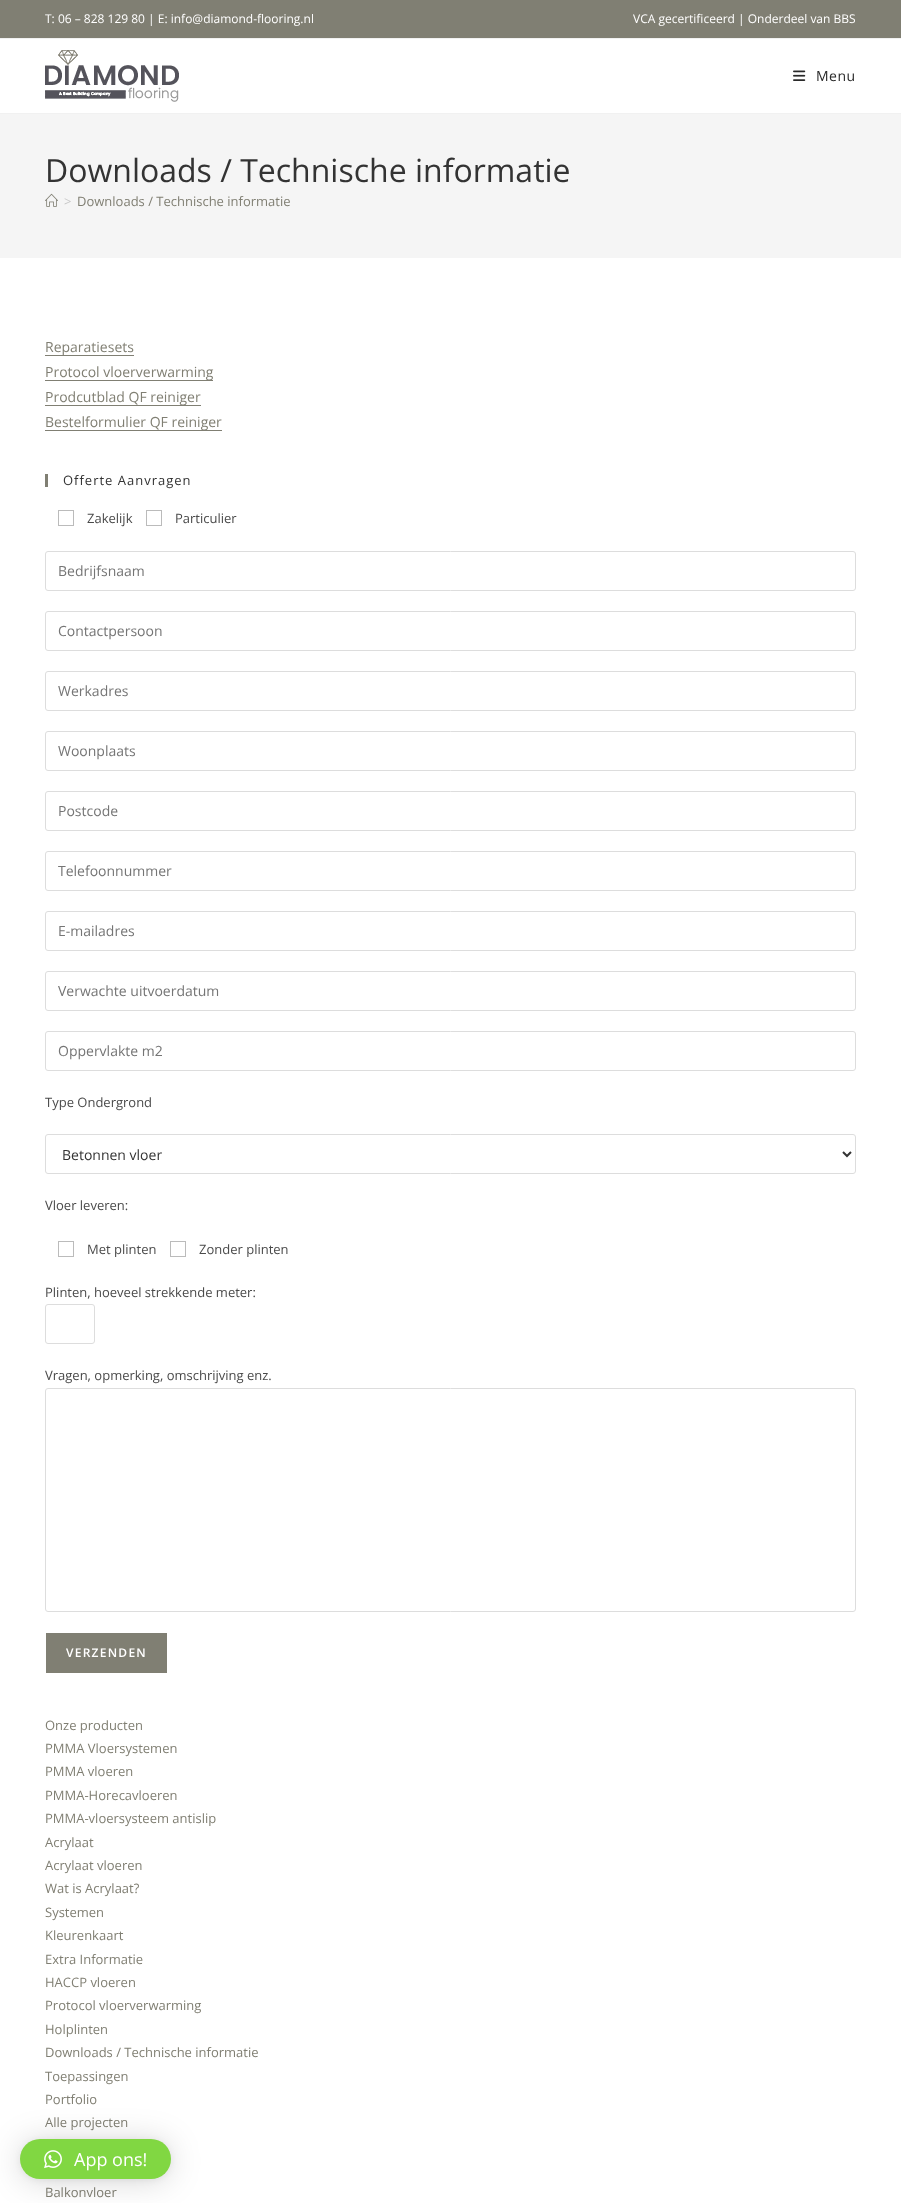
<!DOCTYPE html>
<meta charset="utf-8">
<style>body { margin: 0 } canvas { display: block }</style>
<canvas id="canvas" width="901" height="2203"></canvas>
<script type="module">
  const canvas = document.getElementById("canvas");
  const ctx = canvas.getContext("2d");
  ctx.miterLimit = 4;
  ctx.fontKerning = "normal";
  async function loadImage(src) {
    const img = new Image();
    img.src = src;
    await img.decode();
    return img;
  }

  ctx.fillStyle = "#ffffff";
  ctx.fillRect(0, 0, 901, 2203);
  ctx.fillStyle = "#807f73";
  ctx.fillRect(0, 0, 901, 38);
  ctx.fillStyle = "#f1f1f1";
  ctx.fillRect(0, 38, 901, 1);
  ctx.font = "12px Open Sans";
  ctx.fillStyle = "#ffffff";
  ctx.fillText("T: 06 – 828 129 80 | E: info@diamond-flooring.nl", 45, 23);
  ctx.fillText("VCA gecertificeerd | Onderdeel van BBS", 633, 23);
  ctx.fillStyle = "#f1f1f1";
  ctx.fillRect(0, 113, 901, 1);
  ctx.drawImage(await loadImage("img1.png"), 45, 50, 134, 52);
  ctx.drawImage(await loadImage("img2.png"), 793, 70, 13, 11);
  ctx.letterSpacing = "0.5px";
  ctx.font = "14px Open Sans";
  ctx.fillStyle = "#292929";
  ctx.fillText("Menu", 816, 81);
  ctx.fillStyle = "#f5f5f5";
  ctx.fillRect(0, 114, 901, 144);
  ctx.letterSpacing = "0px";
  ctx.font = "32px Open Sans";
  ctx.fillStyle = "#333333";
  ctx.fillText("Downloads / Technische informatie", 45, 182);
  ctx.drawImage(await loadImage("img3.png"), 45, 193, 13, 14);
  ctx.font = "13px Open Sans";
  ctx.fillStyle = "#c6c6c6";
  ctx.fillText(">", 64, 206);
  ctx.fillStyle = "#807f73";
  ctx.fillText("Downloads / Technische informatie", 77, 206);
  ctx.fillRect(45, 355, 89, 1);
  ctx.font = "14px Open Sans";
  ctx.fillText("Reparatiesets", 45, 352);
  ctx.fillRect(45, 380, 168, 1);
  ctx.fillText("Protocol vloerverwarming", 45, 377);
  ctx.fillRect(45, 405, 156, 1);
  ctx.fillText("Prodcutblad QF reiniger", 45, 402);
  ctx.fillRect(45, 430, 177, 1);
  ctx.fillText("Bestelformulier QF reiniger", 45, 427);
  ctx.fillRect(45, 474, 3, 13);
  ctx.letterSpacing = "1px";
  ctx.font = "13px Open Sans";
  ctx.fillStyle = "#333333";
  ctx.fillText("Offerte Aanvragen", 63, 485);
  ctx.strokeStyle = "#bbbbbb";
  ctx.strokeRect(58.5, 510.5, 15, 15);
  ctx.letterSpacing = "0px";
  ctx.fillStyle = "#4a4a4a";
  ctx.fillText("Zakelijk", 87, 523);
  ctx.strokeRect(146.5, 510.5, 15, 15);
  ctx.fillText("Particulier", 175, 523);
  ctx.beginPath();
  ctx.roundRect(45.5, 551.5, 810, 39, 2.5);
  ctx.strokeStyle = "#dddddd";
  ctx.stroke();
  ctx.font = "14px Open Sans";
  ctx.fillStyle = "#757575";
  ctx.fillText("Bedrijfsnaam", 58, 576);
  ctx.beginPath();
  ctx.roundRect(45.5, 611.5, 810, 39, 2.5);
  ctx.stroke();
  ctx.fillText("Contactpersoon", 58, 636);
  ctx.beginPath();
  ctx.roundRect(45.5, 671.5, 810, 39, 2.5);
  ctx.stroke();
  ctx.fillText("Werkadres", 58, 696);
  ctx.beginPath();
  ctx.roundRect(45.5, 731.5, 810, 39, 2.5);
  ctx.stroke();
  ctx.fillText("Woonplaats", 58, 756);
  ctx.beginPath();
  ctx.roundRect(45.5, 791.5, 810, 39, 2.5);
  ctx.stroke();
  ctx.fillText("Postcode", 58, 816);
  ctx.beginPath();
  ctx.roundRect(45.5, 851.5, 810, 39, 2.5);
  ctx.stroke();
  ctx.fillText("Telefoonnummer", 58, 876);
  ctx.beginPath();
  ctx.roundRect(45.5, 911.5, 810, 39, 2.5);
  ctx.stroke();
  ctx.fillText("E-mailadres", 58, 936);
  ctx.beginPath();
  ctx.roundRect(45.5, 971.5, 810, 39, 2.5);
  ctx.stroke();
  ctx.fillText("Verwachte uitvoerdatum", 58, 996);
  ctx.beginPath();
  ctx.roundRect(45.5, 1031.5, 810, 39, 2.5);
  ctx.stroke();
  ctx.fillText("Oppervlakte m2", 58, 1056);
  ctx.font = "13px Open Sans";
  ctx.fillStyle = "#4a4a4a";
  ctx.fillText("Type Ondergrond", 45, 1107);
  ctx.beginPath();
  ctx.roundRect(45.5, 1134.5, 810, 39, 2.5);
  ctx.stroke();
  ctx.beginPath();
  ctx.moveTo(843, 1152);
  ctx.lineTo(847, 1156);
  ctx.lineTo(851, 1152);
  ctx.strokeStyle = "#333333";
  ctx.lineWidth = 2;
  ctx.stroke();
  ctx.font = "14px Open Sans";
  ctx.fillStyle = "#333333";
  ctx.fillText("Betonnen vloer", 62, 1160);
  ctx.font = "13px Open Sans";
  ctx.fillStyle = "#4a4a4a";
  ctx.fillText("Vloer leveren:", 45, 1210);
  ctx.strokeStyle = "#bbbbbb";
  ctx.lineWidth = 1;
  ctx.strokeRect(58.5, 1241.5, 15, 15);
  ctx.fillText("Met plinten", 87, 1254);
  ctx.strokeRect(170.5, 1241.5, 15, 15);
  ctx.fillText("Zonder plinten", 199, 1254);
  ctx.fillText("Plinten, hoeveel strekkende meter:", 45, 1297);
  ctx.beginPath();
  ctx.roundRect(45.5, 1304.5, 49, 39, 2.5);
  ctx.strokeStyle = "#dddddd";
  ctx.stroke();
  ctx.fillText("Vragen, opmerking, omschrijving enz.", 45, 1380);
  ctx.beginPath();
  ctx.roundRect(45.5, 1388.5, 810, 223, 2.5);
  ctx.stroke();
  ctx.fillStyle = "#807f73";
  ctx.fillRect(46, 1633, 121, 40);
  ctx.letterSpacing = "1.25px";
  ctx.font = "600 12px Open Sans";
  ctx.fillStyle = "#ffffff";
  ctx.fillText("VERZENDEN", 66, 1657);
  ctx.letterSpacing = "0px";
  ctx.font = "13px Open Sans";
  ctx.fillStyle = "#807f73";
  ctx.fillText("Onze producten", 45, 1730);
  ctx.fillText("PMMA Vloersystemen", 45, 1753);
  ctx.fillText("PMMA vloeren", 45, 1776);
  ctx.fillText("PMMA-Horecavloeren", 45, 1800);
  ctx.fillText("PMMA-vloersysteem antislip", 45, 1823);
  ctx.fillText("Acrylaat", 45, 1847);
  ctx.fillText("Acrylaat vloeren", 45, 1870);
  ctx.fillText("Wat is Acrylaat?", 45, 1893);
  ctx.fillText("Systemen", 45, 1917);
  ctx.fillText("Kleurenkaart", 45, 1940);
  ctx.fillText("Extra Informatie", 45, 1964);
  ctx.fillText("HACCP vloeren", 45, 1987);
  ctx.fillText("Protocol vloerverwarming", 45, 2010);
  ctx.fillText("Holplinten", 45, 2034);
  ctx.fillText("Downloads / Technische informatie", 45, 2057);
  ctx.fillText("Toepassingen", 45, 2081);
  ctx.fillText("Portfolio", 45, 2104);
  ctx.fillText("Alle projecten", 45, 2127);
  ctx.fillText("Balkonvloer", 45, 2197);
  ctx.fillStyle = "rgba(0, 0, 0, 0.16)";
  ctx.filter = "blur(16px)";
  ctx.beginPath();
  ctx.roundRect(20, 2141, 151, 40, 20);
  ctx.fill();
  ctx.filter = "none";
  ctx.fillStyle = "rgba(0, 0, 0, 0.06)";
  ctx.filter = "blur(3px)";
  ctx.beginPath();
  ctx.roundRect(20, 2140, 151, 40, 20);
  ctx.fill();
  ctx.filter = "none";
  ctx.fillStyle = "#81d742";
  ctx.beginPath();
  ctx.roundRect(20, 2139, 151, 40, 20);
  ctx.fill();
  ctx.drawImage(await loadImage("img4.png"), 44, 2150, 18, 19);
  ctx.font = "18px Open Sans";
  ctx.fillStyle = "#ffffff";
  ctx.fillText("App ons!", 74, 2166);
</script>
